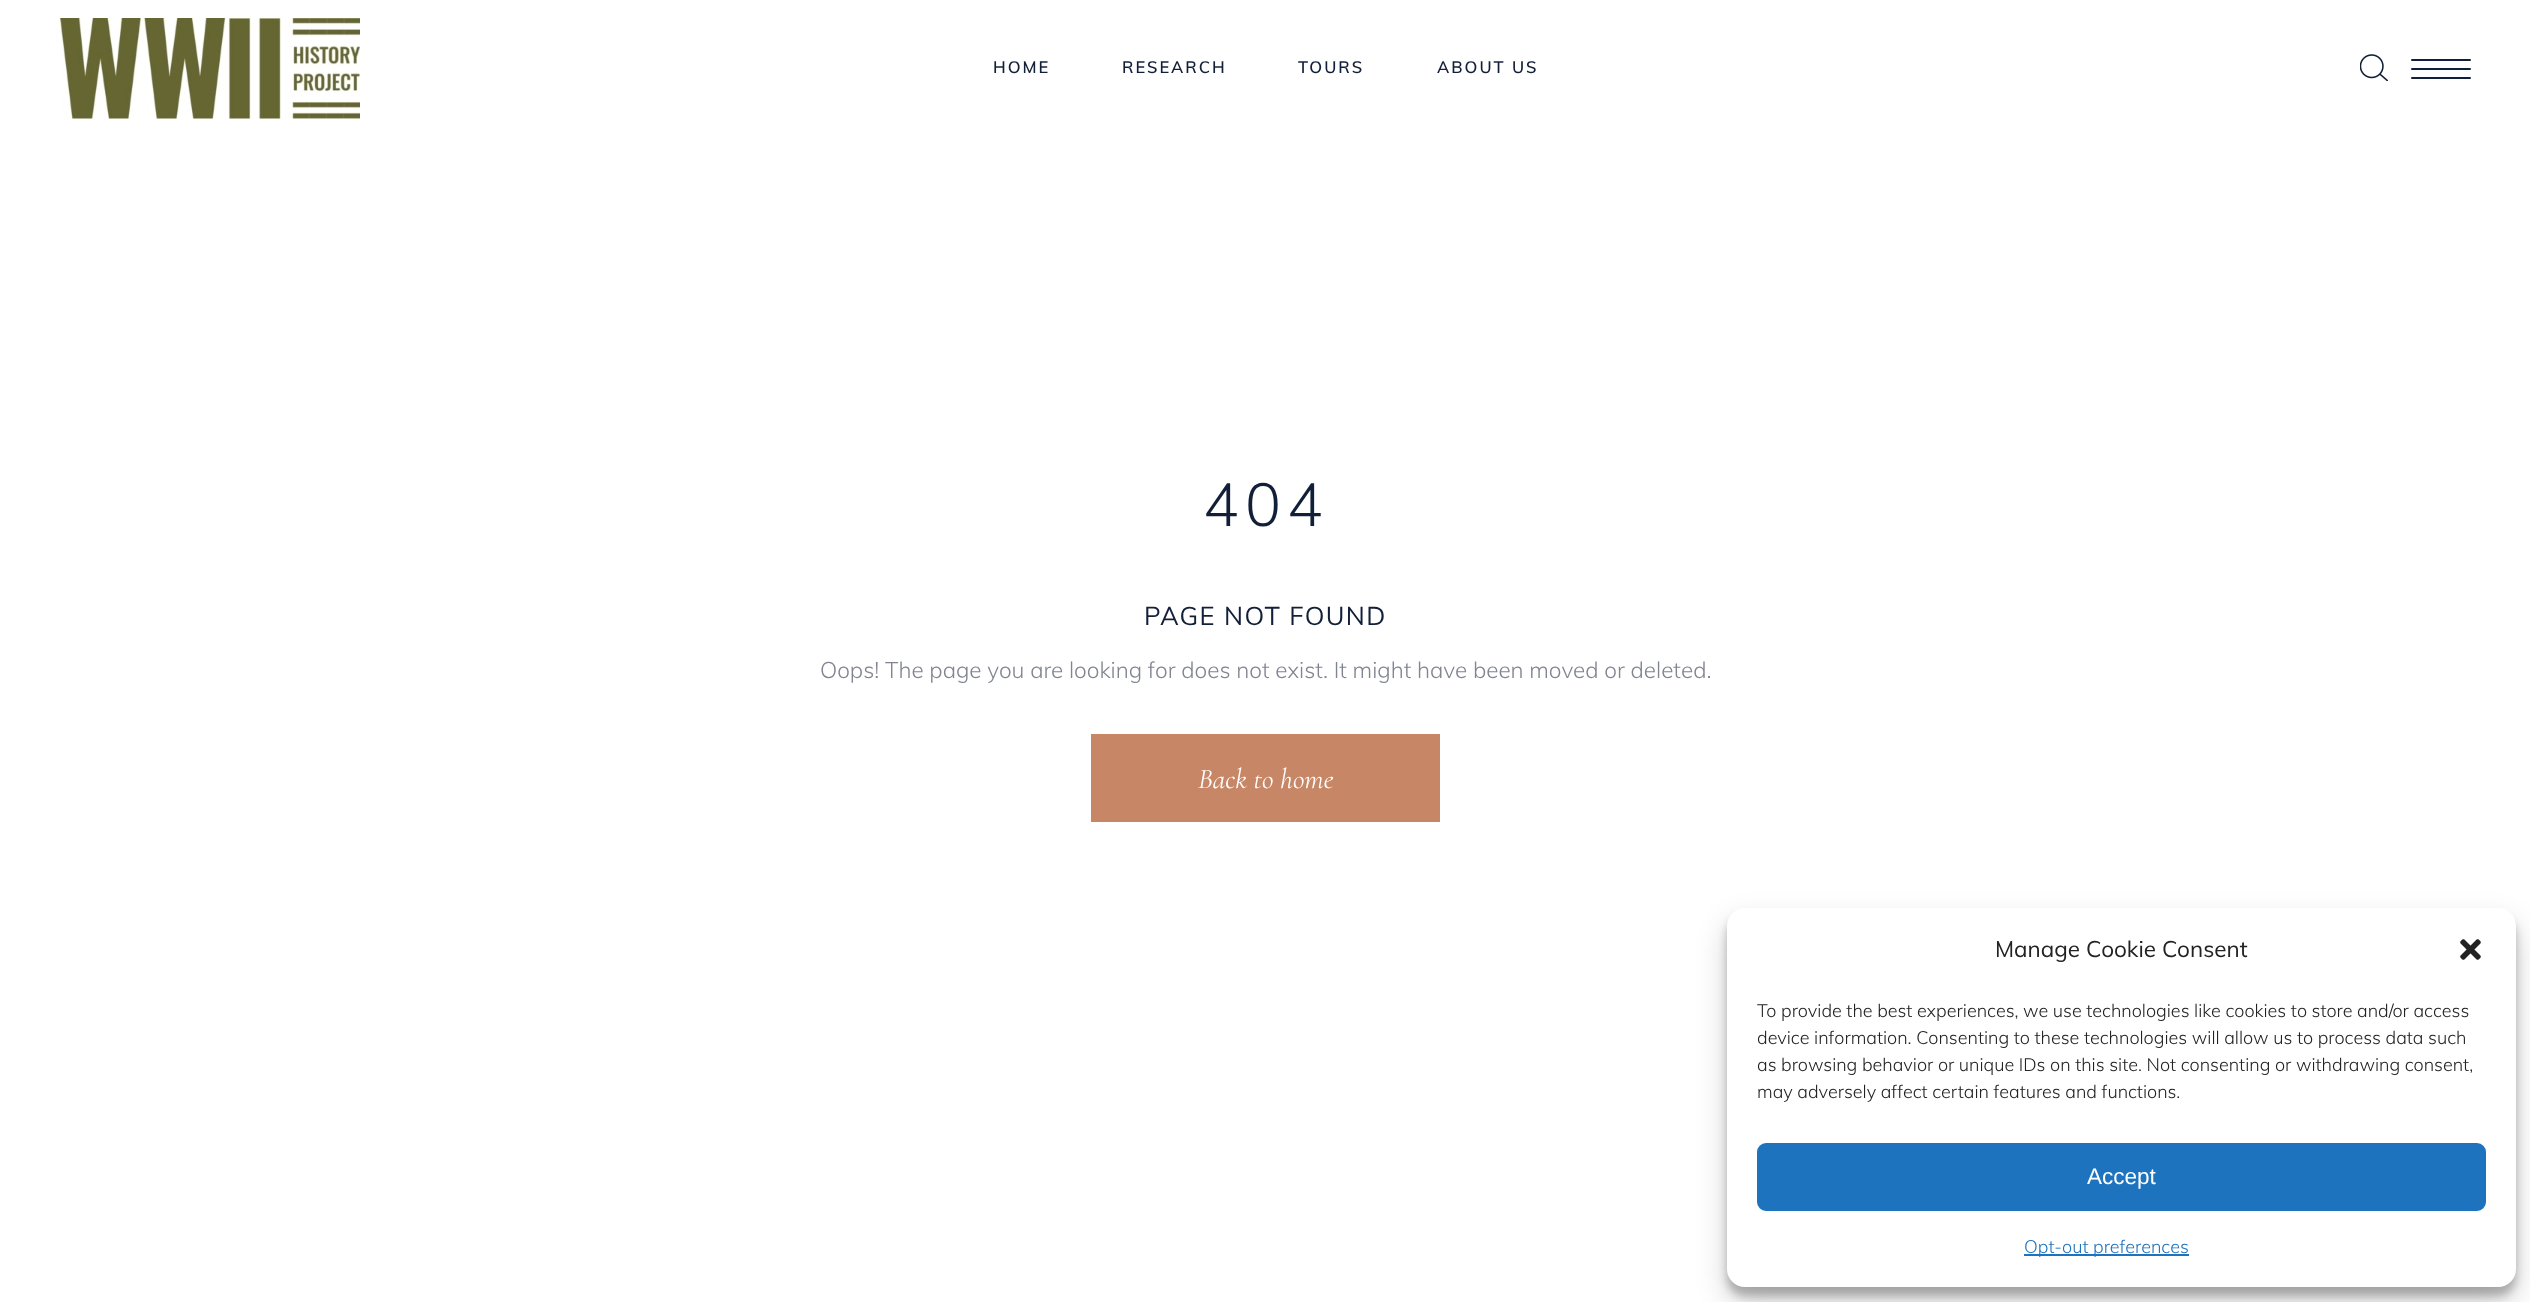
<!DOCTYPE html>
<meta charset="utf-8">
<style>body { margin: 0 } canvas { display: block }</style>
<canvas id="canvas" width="2530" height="1302"></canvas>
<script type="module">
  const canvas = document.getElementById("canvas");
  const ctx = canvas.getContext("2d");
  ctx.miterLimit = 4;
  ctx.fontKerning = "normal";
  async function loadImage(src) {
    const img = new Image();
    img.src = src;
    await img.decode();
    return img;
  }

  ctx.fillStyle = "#ffffff";
  ctx.fillRect(0, 0, 2530, 1302);
  ctx.drawImage(await loadImage("img1.png"), 60, 18, 300, 101);
  ctx.letterSpacing = "2px";
  ctx.font = "600 16.5px Muli";
  ctx.fillStyle = "#121f38";
  ctx.fillText("HOME", 993, 73);
  ctx.fillText("RESEARCH", 1122, 73);
  ctx.fillText("TOURS", 1298, 73);
  ctx.fillText("ABOUT US", 1437, 73);
  ctx.drawImage(await loadImage("img2.png"), 2360, 54, 28, 27);
  ctx.beginPath();
  ctx.roundRect(2411, 59, 60, 2, 1);
  ctx.fill();
  ctx.beginPath();
  ctx.roundRect(2411, 68, 60, 2, 1);
  ctx.fill();
  ctx.beginPath();
  ctx.roundRect(2411, 77, 60, 2, 1);
  ctx.fill();
  ctx.letterSpacing = "6px";
  ctx.font = "300 60px Muli";
  ctx.fillText("404", 1203, 526);
  ctx.letterSpacing = "1.4px";
  ctx.font = "25.5px Muli";
  ctx.fillText("PAGE NOT FOUND", 1144, 625);
  ctx.letterSpacing = "0px";
  ctx.font = "300 22.5px Muli";
  ctx.fillStyle = "#818491";
  ctx.fillText("Oops! The page you are looking for does not exist. It might have been moved or deleted.", 820, 678);
  ctx.fillStyle = "#c78665";
  ctx.fillRect(1091, 734, 349, 88);
  ctx.font = "italic 300 28.5px Cormorant";
  ctx.fillStyle = "#ffffff";
  ctx.fillText("Back to home", 1198, 788);
  ctx.fillStyle = "rgba(0, 0, 0, 0.23)";
  ctx.filter = "blur(4.5px)";
  ctx.beginPath();
  ctx.roundRect(1727, 917, 789, 379, 18);
  ctx.fill();
  ctx.filter = "none";
  ctx.fillStyle = "rgba(0, 0, 0, 0.19)";
  ctx.filter = "blur(15px)";
  ctx.beginPath();
  ctx.roundRect(1727, 923, 789, 379, 18);
  ctx.fill();
  ctx.filter = "none";
  ctx.fillStyle = "#ffffff";
  ctx.beginPath();
  ctx.roundRect(1727, 908, 789, 379, 18);
  ctx.fill();
  ctx.font = "22.5px Muli";
  ctx.fillStyle = "#222222";
  ctx.fillText("Manage Cookie Consent", 1995, 957);
  ctx.drawImage(await loadImage("img3.png"), 2460, 939, 21, 21);
  ctx.font = "300 18px Muli";
  ctx.fillText("To provide the best experiences, we use technologies like cookies to store and/or access", 1757, 1017);
  ctx.fillText("device information. Consenting to these technologies will allow us to process data such", 1757, 1044);
  ctx.fillText("as browsing behavior or unique IDs on this site. Not consenting or withdrawing consent,", 1757, 1071);
  ctx.fillText("may adversely affect certain features and functions.", 1757, 1098);
  ctx.fillStyle = "#1e73be";
  ctx.beginPath();
  ctx.roundRect(1758, 1144, 727, 66, 8);
  ctx.fill();
  ctx.strokeStyle = "#1e73be";
  ctx.lineWidth = 2;
  ctx.stroke();
  ctx.font = "22.5px Liberation Sans";
  ctx.fillStyle = "#ffffff";
  ctx.fillText("Accept", 2087, 1184);
  ctx.fillStyle = "#1e73be";
  ctx.fillRect(2024, 1254, 165, 2);
  ctx.font = "300 18px Muli";
  ctx.fillText("Opt-out preferences", 2024, 1253);
</script>
